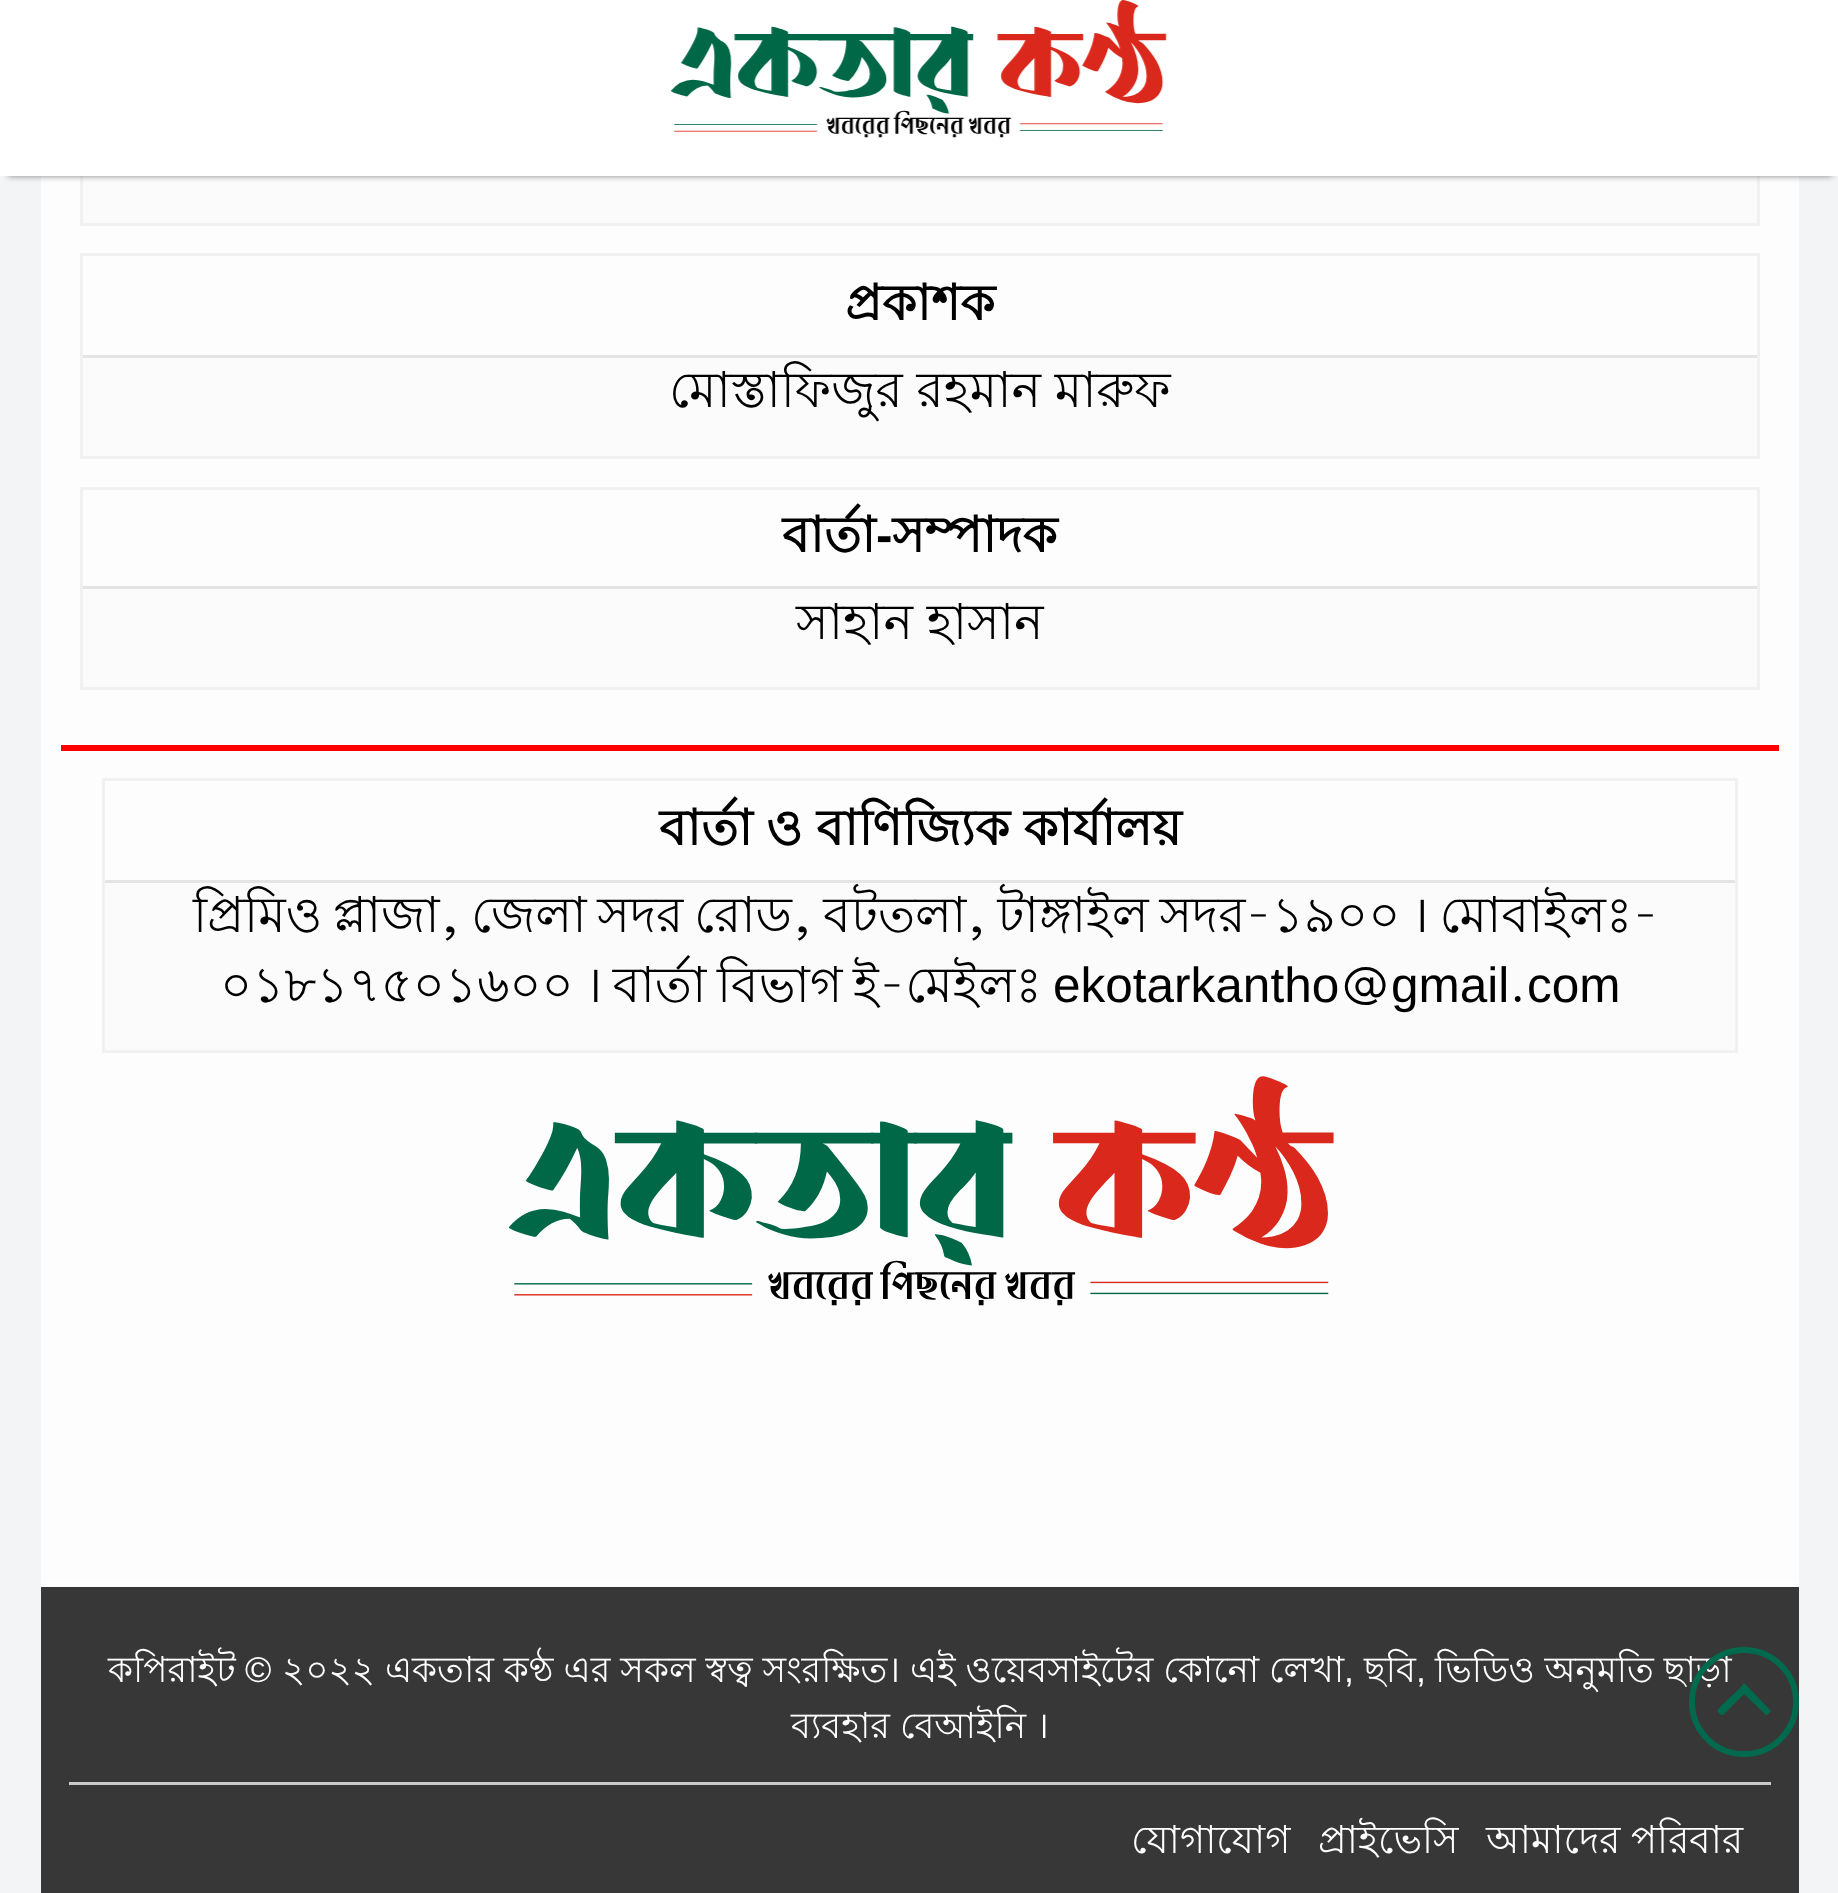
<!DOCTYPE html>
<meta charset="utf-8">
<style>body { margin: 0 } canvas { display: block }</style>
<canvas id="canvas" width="1838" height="1893"></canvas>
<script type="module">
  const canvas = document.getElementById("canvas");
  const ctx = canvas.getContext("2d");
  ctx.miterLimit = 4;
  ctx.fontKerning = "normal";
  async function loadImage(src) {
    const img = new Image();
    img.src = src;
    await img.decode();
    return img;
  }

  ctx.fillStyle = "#f2f4f6";
  ctx.fillRect(0, 0, 1838, 1893);
  ctx.fillStyle = "#fdfdfe";
  ctx.fillRect(41, 176, 1758, 1405);
  ctx.fillStyle = "#fbfbfb";
  ctx.fillRect(83, 176, 1674, 47);
  ctx.strokeStyle = "#f1f1f1";
  ctx.lineWidth = 3;
  ctx.strokeRect(81.5, 23.5, 1677, 201);
  ctx.fillStyle = "#808080";
  ctx.filter = "blur(3px)";
  ctx.beginPath();
  ctx.rect(8, 17, 1824, 159);
  ctx.fill();
  ctx.filter = "none";
  ctx.fillStyle = "#ffffff";
  ctx.fillRect(0, 0, 1838, 176);
  ctx.drawImage(await loadImage("img1.png"), 670, 0, 497, 138);
  ctx.fillRect(41, 1581, 1758, 6);
  ctx.fillStyle = "#ff0000";
  ctx.fillRect(61, 745, 1718, 6);
  ctx.fillStyle = "#fbfbfb";
  ctx.fillRect(83, 358, 1674, 98);
  ctx.strokeRect(81.5, 254.5, 1677, 203);
  ctx.fillStyle = "#e4e4e4";
  ctx.fillRect(83, 355, 1674, 3);
  ctx.font = "bold 49.5px Lohit Bengali";
  ctx.fillStyle = "#000000";
  ctx.fillText("প্রকাশক", 845, 320);
  ctx.font = "49.5px Lohit Bengali";
  ctx.fillText("মোস্তাফিজুর রহমান মারুফ", 669, 407);
  ctx.fillStyle = "#fbfbfb";
  ctx.fillRect(83, 589, 1674, 98);
  ctx.strokeRect(81.5, 488.5, 1677, 200);
  ctx.fillStyle = "#e4e4e4";
  ctx.fillRect(83, 586, 1674, 3);
  ctx.font = "bold 49.5px Lohit Bengali";
  ctx.fillStyle = "#000000";
  ctx.fillText("বার্তা", 782, 552);
  ctx.font = "bold 49.5px Liberation Sans";
  ctx.fillText("-", 876, 552);
  ctx.font = "bold 49.5px Lohit Bengali";
  ctx.fillText("সম্পাদক", 892, 552);
  ctx.font = "49.5px Lohit Bengali";
  ctx.fillText("সাহান হাসান", 796, 639);
  ctx.fillStyle = "#fbfbfb";
  ctx.fillRect(105, 883, 1630, 167);
  ctx.strokeRect(103.5, 779.5, 1633, 272);
  ctx.fillStyle = "#e4e4e4";
  ctx.fillRect(105, 880, 1630, 3);
  ctx.font = "bold 49.5px Lohit Bengali";
  ctx.fillStyle = "#000000";
  ctx.fillText("বার্তা ও বাণিজ্যিক কার্যালয়", 659, 845);
  ctx.wordSpacing = "-3px";
  ctx.font = "49.5px Lohit Bengali";
  ctx.fillText("প্রিমিও প্লাজা, জেলা সদর রোড, বটতলা, টাঙ্গাইল সদর-১৯০০ । মোবাইলঃ-", 193, 932);
  ctx.fillText("০১৮১৭৫০১৬০০ । বার্তা বিভাগ ই-মেইলঃ", 220, 1002);
  ctx.wordSpacing = "0px";
  ctx.font = "49.5px Liberation Sans";
  ctx.fillText("ekotarkantho", 1053, 1002);
  ctx.font = "49.5px Lohit Bengali";
  ctx.fillText("@", 1339, 1002);
  ctx.font = "49.5px Liberation Sans";
  ctx.fillText("gmail", 1391, 1002);
  ctx.font = "49.5px Lohit Bengali";
  ctx.fillText(".", 1509, 1002);
  ctx.font = "49.5px Liberation Sans";
  ctx.fillText("com", 1527, 1002);
  ctx.drawImage(await loadImage("img2.png"), 509, 1076, 825, 230);
  ctx.fillStyle = "#373737";
  ctx.fillRect(41, 1587, 1758, 306);
  ctx.fillStyle = "#cccccc";
  ctx.fillRect(69, 1782, 1702, 3);
  ctx.font = "35.75px Lohit Bengali";
  ctx.fillStyle = "#ffffff";
  ctx.fillText("কপিরাইট", 108, 1682);
  ctx.font = "35.75px Liberation Sans";
  ctx.fillText("©", 245, 1682);
  ctx.font = "35.75px Lohit Bengali";
  ctx.fillText("২০২২ একতার কণ্ঠ এর সকল স্বত্ব সংরক্ষিত। এই ওয়েবসাইটের কোনো লেখা", 282, 1682);
  ctx.font = "35.75px Liberation Sans";
  ctx.fillText(",", 1344, 1682);
  ctx.font = "35.75px Lohit Bengali";
  ctx.fillText("ছবি", 1364, 1682);
  ctx.font = "35.75px Liberation Sans";
  ctx.fillText(",", 1416, 1682);
  ctx.font = "35.75px Lohit Bengali";
  ctx.fillText("ভিডিও অনুমতি ছাড়া", 1435, 1682);
  ctx.fillText("ব্যবহার বেআইনি ।", 791, 1738);
  ctx.font = "38.5px Lohit Bengali";
  ctx.fillText("যোগাযোগ", 1131, 1853);
  ctx.fillText("প্রাইভেসি", 1318, 1853);
  ctx.fillText("আমাদের পরিবার", 1486, 1853);
  ctx.beginPath();
  ctx.arc(1744, 1702, 52, 0, Math.PI * 2);
  ctx.strokeStyle = "#006a4e";
  ctx.lineWidth = 6;
  ctx.stroke();
  ctx.fillStyle = "#006a4e";
  ctx.beginPath();
  ctx.moveTo(1770, 1710);
  ctx.bezierCurveTo(1772, 1711, 1770, 1712, 1769, 1713);
  ctx.bezierCurveTo(1766, 1717, 1766, 1715, 1762, 1711);
  ctx.lineTo(1744, 1694);
  ctx.lineTo(1723, 1715);
  ctx.bezierCurveTo(1721, 1716, 1720, 1714, 1719, 1713);
  ctx.bezierCurveTo(1716, 1710, 1718, 1710, 1722, 1705);
  ctx.lineTo(1739, 1689);
  ctx.bezierCurveTo(1745, 1682, 1743, 1682, 1750, 1689);
  ctx.closePath();
  ctx.fill();
</script>
